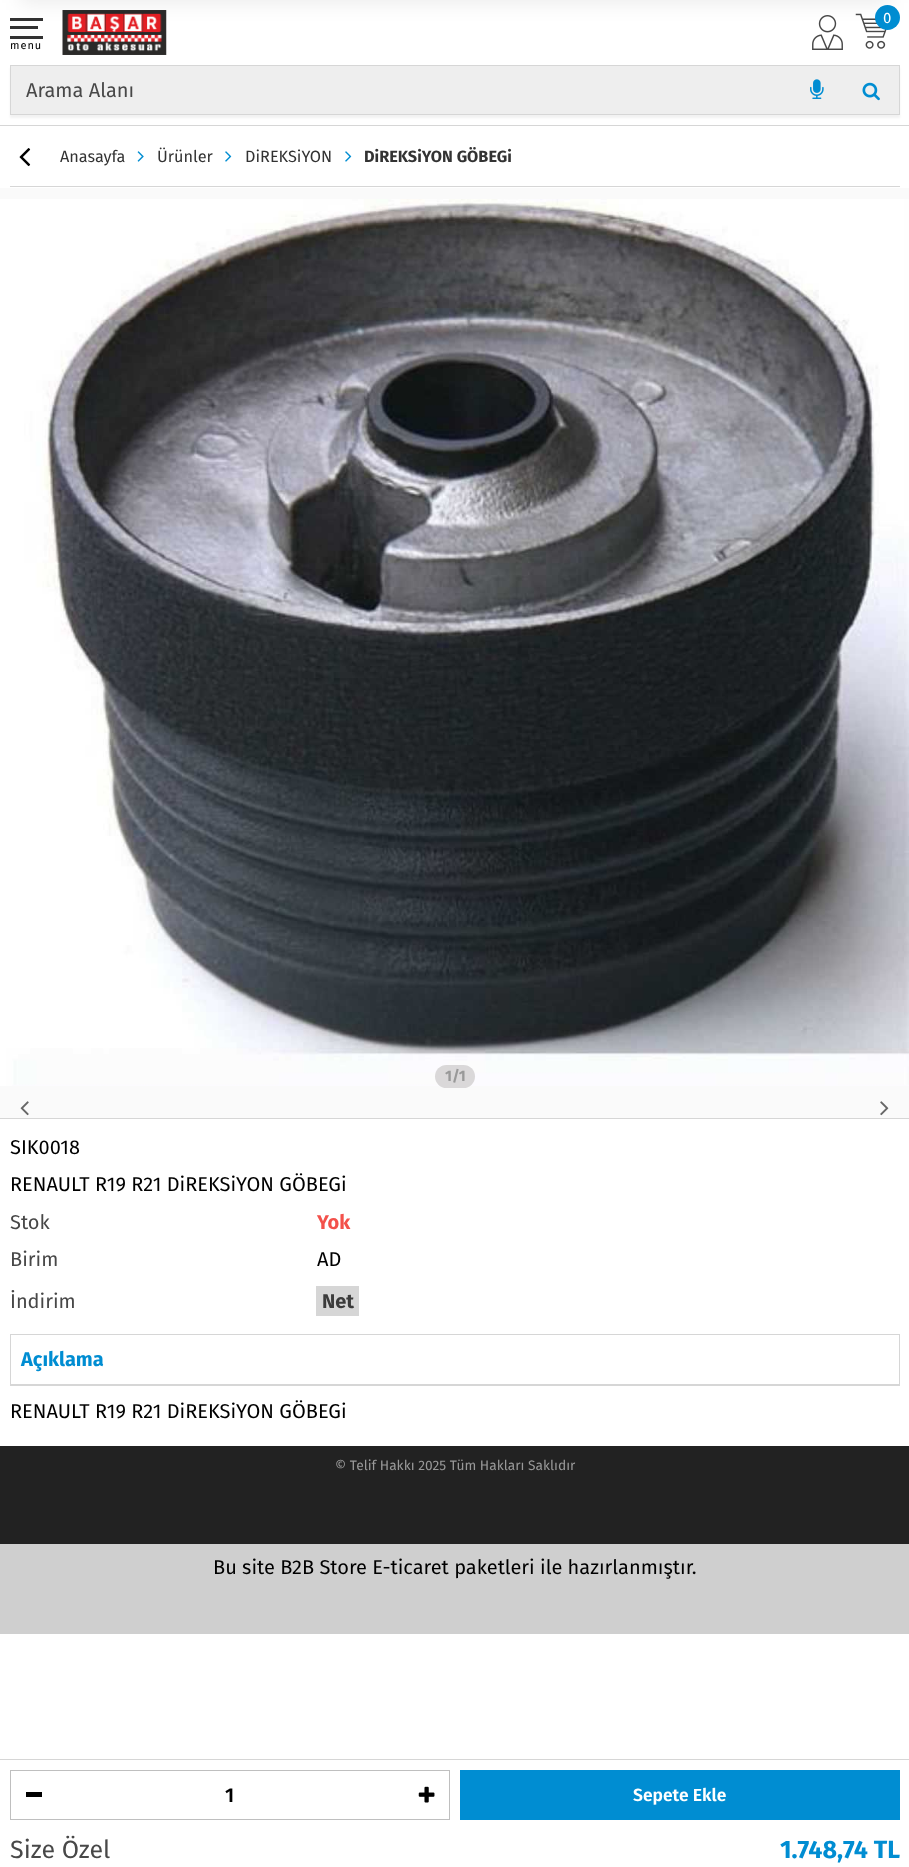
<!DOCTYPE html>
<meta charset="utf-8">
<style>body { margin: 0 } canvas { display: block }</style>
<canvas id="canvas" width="909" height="1867"></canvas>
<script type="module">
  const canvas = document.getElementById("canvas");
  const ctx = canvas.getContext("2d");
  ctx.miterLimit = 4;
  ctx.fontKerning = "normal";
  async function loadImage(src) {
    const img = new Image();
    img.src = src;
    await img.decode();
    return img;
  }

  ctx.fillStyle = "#ffffff";
  ctx.fillRect(0, 0, 909, 1867);
  ctx.drawImage(await loadImage("img1.png"), 62, 10, 105, 45);
  ctx.drawImage(await loadImage("img2.png"), 812, 15, 31, 35);
  ctx.drawImage(await loadImage("img3.png"), 855, 13, 32, 36);
  ctx.fillStyle = "#008dd2";
  ctx.beginPath();
  ctx.arc(887.5, 17.5, 12.5, 0, Math.PI * 2);
  ctx.fill();
  ctx.fillStyle = "#333333";
  ctx.fillRect(10, 18, 33, 3);
  ctx.fillRect(10, 26, 28, 3);
  ctx.fillStyle = "rgba(0, 0, 0, 0.08)";
  ctx.filter = "blur(10px)";
  ctx.beginPath();
  ctx.rect(20, -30, 870, 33);
  ctx.fill();
  ctx.filter = "none";
  ctx.fillStyle = "#d6d6d6";
  ctx.fillRect(0, 125, 909, 1);
  ctx.font = "15px Fira Sans";
  ctx.fillStyle = "#ffffff";
  ctx.fillText("0", 883, 23);
  ctx.fillStyle = "#333333";
  ctx.fillRect(10, 36, 33, 3);
  ctx.letterSpacing = "1px";
  ctx.font = "11px Fira Sans";
  ctx.fillStyle = "#000000";
  ctx.fillText("menu", 10, 49);
  ctx.fillStyle = "rgba(0, 0, 0, 0.05)";
  ctx.filter = "blur(1px)";
  ctx.beginPath();
  ctx.rect(10, 68, 890, 50);
  ctx.fill();
  ctx.filter = "none";
  ctx.strokeStyle = "#d6d6d6";
  ctx.strokeRect(10.5, 65.5, 889, 49);
  ctx.fillStyle = "#eeeeee";
  ctx.fillRect(11, 66, 888, 48);
  ctx.letterSpacing = "0px";
  ctx.font = "20px Fira Sans";
  ctx.fillStyle = "#484848";
  ctx.fillText("Arama Alanı", 26, 97);
  ctx.drawImage(await loadImage("img4.png"), 810, 79, 14, 20);
  ctx.drawImage(await loadImage("img5.png"), 862, 82, 18, 19);
  ctx.fillStyle = "#d6d6d6";
  ctx.fillRect(10, 186, 890, 1);
  ctx.drawImage(await loadImage("img6.png"), 19, 148, 12, 19);
  ctx.font = "16.25px Fira Sans";
  ctx.fillStyle = "#333333";
  ctx.fillText("Anasayfa", 60, 162);
  ctx.drawImage(await loadImage("img7.png"), 137, 151, 7, 11);
  ctx.fillText("Ürünler", 157, 162);
  ctx.drawImage(await loadImage("img8.png"), 225, 151, 7, 11);
  ctx.fillText("DiREKSiYON", 245, 162);
  ctx.drawImage(await loadImage("img8.png"), 345, 151, 7, 11);
  ctx.font = "bold 16.25px Fira Sans";
  ctx.fillText("DiREKSiYON GÖBEGi", 364, 162);
  ctx.fillStyle = "#fafafa";
  ctx.fillRect(0, 188, 909, 930);
  ctx.fillStyle = "#d6d6d6";
  ctx.fillRect(0, 1118, 909, 1);
  ctx.drawImage(await loadImage("img9.png"), 0, 199, 909, 887);
  ctx.fillStyle = "#dad8d9";
  ctx.beginPath();
  ctx.roundRect(435, 1065, 40, 23, 11.5);
  ctx.fill();
  ctx.font = "bold 15px Fira Sans";
  ctx.fillStyle = "#999999";
  ctx.fillText("1/1", 445, 1081);
  ctx.drawImage(await loadImage("img10.png"), 20, 1101, 9, 15);
  ctx.drawImage(await loadImage("img11.png"), 880, 1101, 9, 15);
  ctx.font = "20px Fira Sans";
  ctx.fillStyle = "#000000";
  ctx.fillText("SIK0018", 10, 1154);
  ctx.fillText("RENAULT R19 R21 DiREKSiYON GÖBEGi", 10, 1191);
  ctx.fillStyle = "#484848";
  ctx.fillText("Stok", 10, 1229);
  ctx.font = "bold 20px Fira Sans";
  ctx.fillStyle = "#f3514b";
  ctx.fillText("Yok", 317, 1229);
  ctx.font = "20px Fira Sans";
  ctx.fillStyle = "#484848";
  ctx.fillText("Birim", 10, 1266);
  ctx.fillStyle = "#000000";
  ctx.fillText("AD", 317, 1266);
  ctx.fillStyle = "#484848";
  ctx.fillText("İndirim", 10, 1308);
  ctx.fillStyle = "#d6d6d6";
  ctx.fillRect(316, 1286, 43, 30);
  ctx.font = "bold 20px Fira Sans";
  ctx.fillStyle = "#3b3b3b";
  ctx.fillText("Net", 322, 1308);
  ctx.fillStyle = "#d6d6d6";
  ctx.fillRect(0, 1759, 909, 1);
  ctx.fillStyle = "#bfbfbf";
  ctx.fillRect(10, 1770, 440, 1);
  ctx.fillRect(10, 1819, 395, 1);
  ctx.fillRect(10, 1770, 1, 50);
  ctx.fillStyle = "#000000";
  ctx.fillRect(26, 1792, 16, 5);
  ctx.font = "600 20px Fira Sans";
  ctx.fillText("1", 225, 1802);
  ctx.fillStyle = "#bfbfbf";
  ctx.fillRect(449, 1770, 1, 50);
  ctx.fillRect(404, 1819, 46, 1);
  ctx.drawImage(await loadImage("img12.png"), 418, 1786, 17, 17);
  ctx.fillStyle = "#008dd2";
  ctx.fillRect(460, 1770, 440, 50);
  ctx.font = "600 17.5px Fira Sans";
  ctx.fillStyle = "#ffffff";
  ctx.fillText("Sepete Ekle", 633, 1801);
  ctx.font = "25px Fira Sans";
  ctx.fillStyle = "#484848";
  ctx.fillText("Size Özel", 10, 1858);
  ctx.font = "bold 25px Fira Sans";
  ctx.fillStyle = "#008dd2";
  ctx.fillText("1.748,74 TL", 780, 1858);
  ctx.strokeRect(10.5, 1334.5, 889, 51);
  ctx.fillStyle = "#d6d6d6";
  ctx.fillRect(11, 1384, 888, 1);
  ctx.font = "bold 20px Fira Sans";
  ctx.fillStyle = "#008dd2";
  ctx.fillText("Açıklama", 21, 1366);
  ctx.font = "20px Fira Sans";
  ctx.fillStyle = "#000000";
  ctx.fillText("RENAULT R19 R21 DiREKSiYON GÖBEGi", 10, 1418);
  ctx.fillStyle = "#222222";
  ctx.fillRect(0, 1446, 909, 98);
  ctx.font = "13.75px Fira Sans";
  ctx.fillStyle = "#999999";
  ctx.fillText("© Telif Hakkı 2025 Tüm Hakları Saklıdır", 335, 1470);
  ctx.fillStyle = "#cfcfcf";
  ctx.fillRect(0, 1544, 909, 90);
  ctx.font = "20px Fira Sans";
  ctx.fillStyle = "#000000";
  ctx.fillText("Bu site B2B Store E-ticaret paketleri ile hazırlanmıştır.", 213, 1574);
</script>
